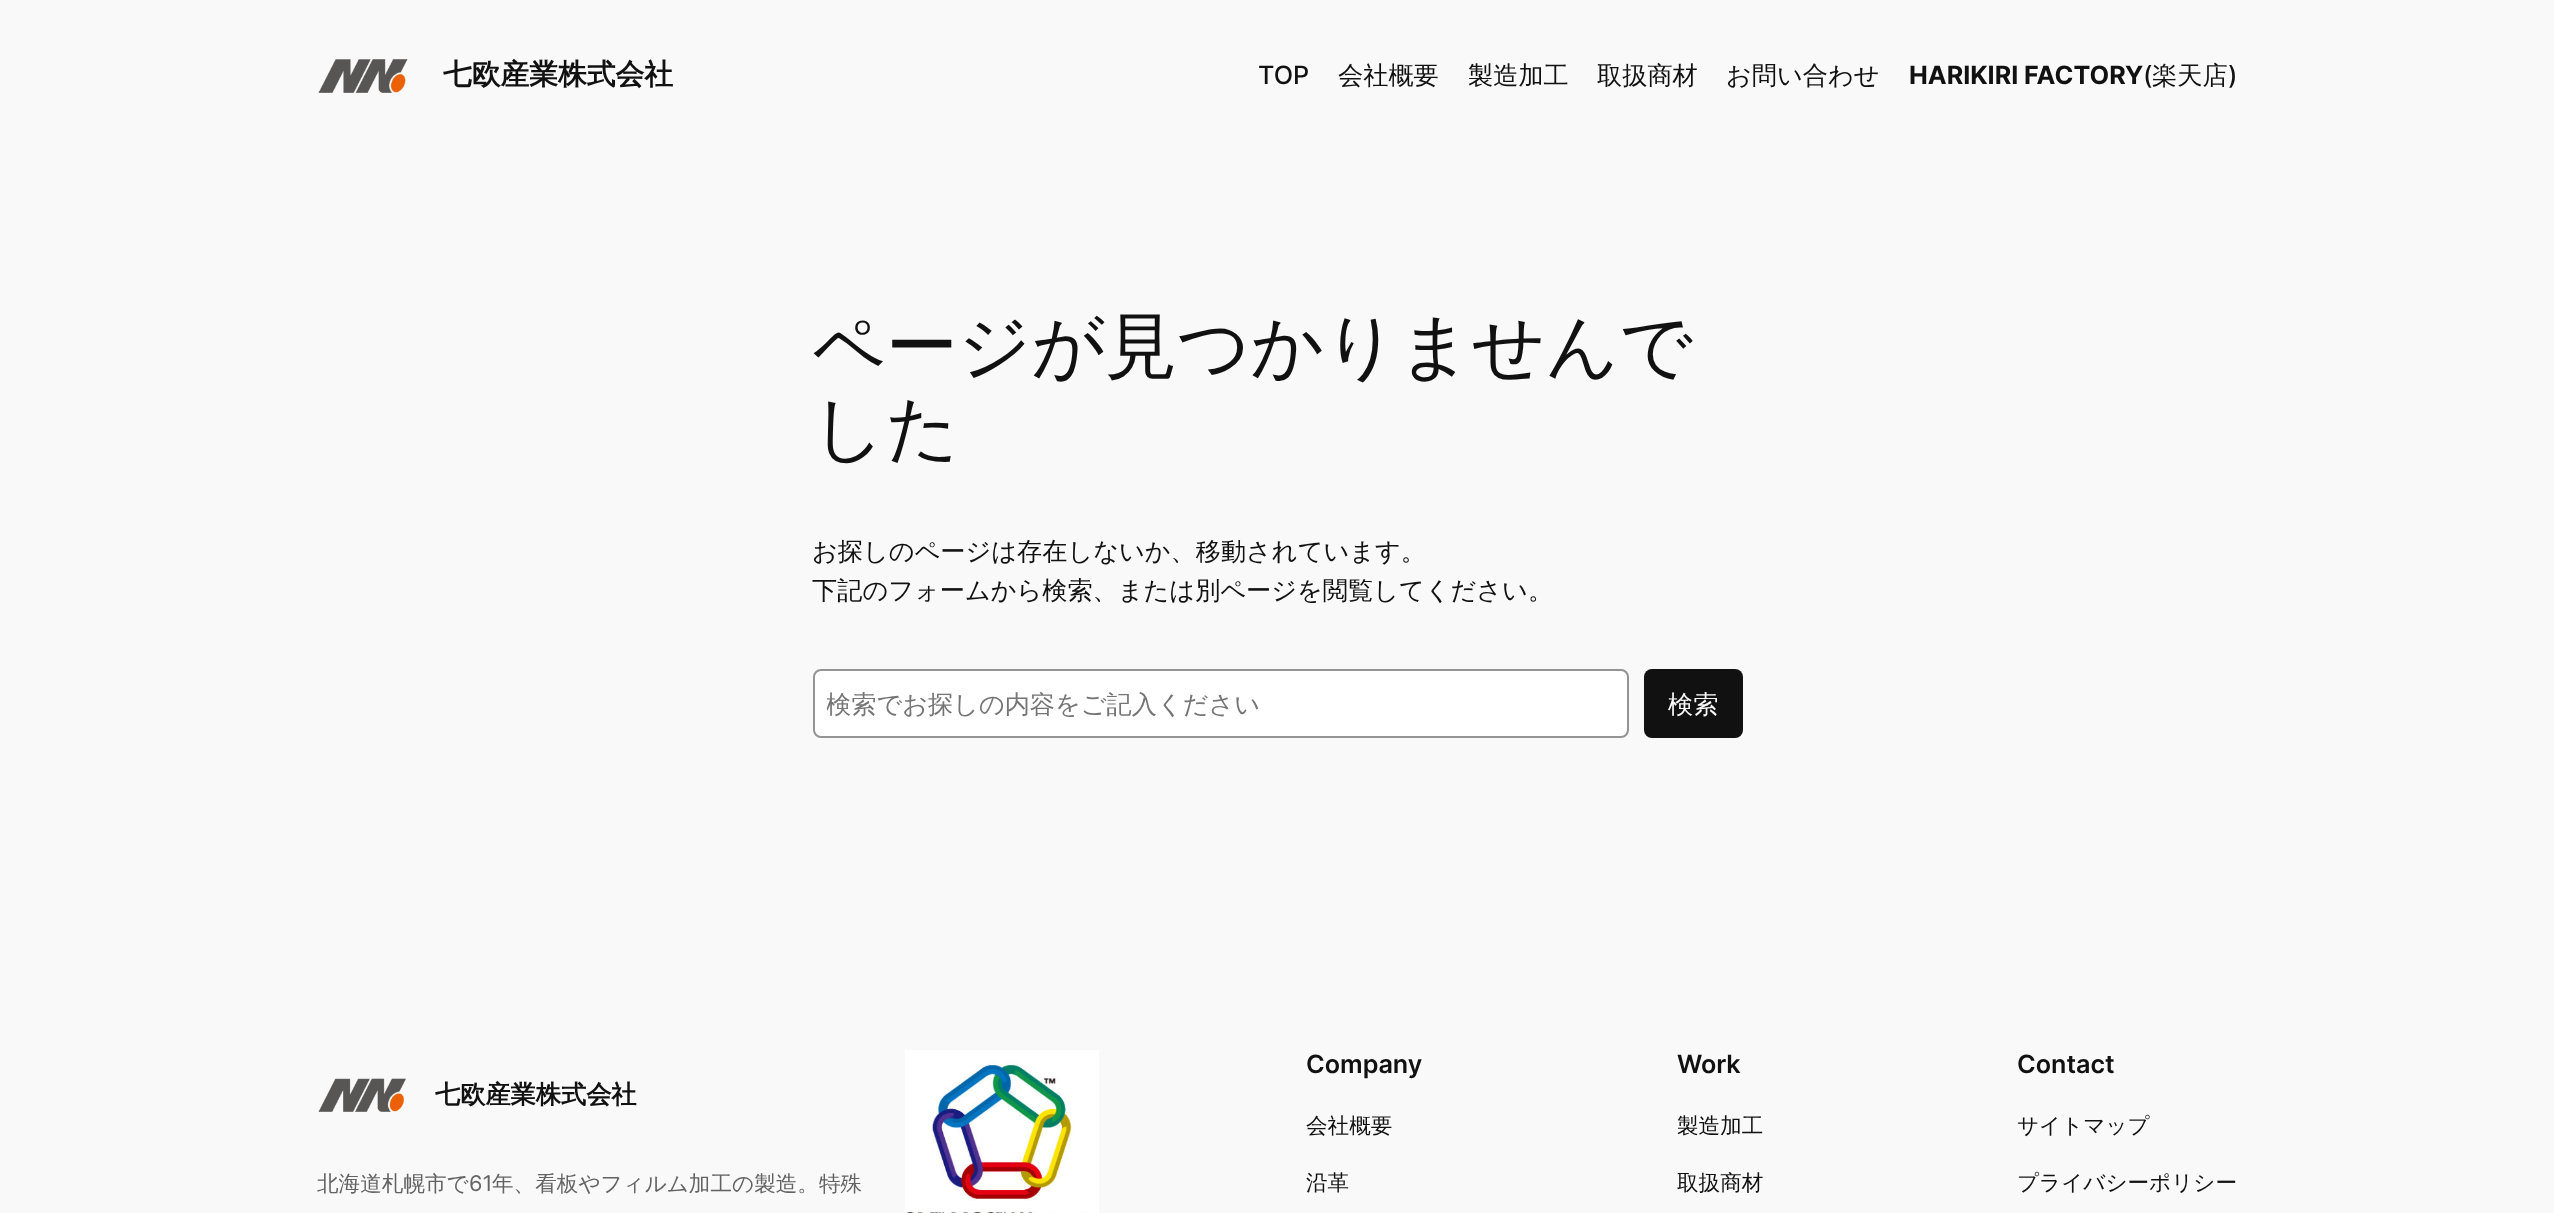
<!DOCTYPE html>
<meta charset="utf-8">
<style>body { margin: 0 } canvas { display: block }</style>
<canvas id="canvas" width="2554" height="1213"></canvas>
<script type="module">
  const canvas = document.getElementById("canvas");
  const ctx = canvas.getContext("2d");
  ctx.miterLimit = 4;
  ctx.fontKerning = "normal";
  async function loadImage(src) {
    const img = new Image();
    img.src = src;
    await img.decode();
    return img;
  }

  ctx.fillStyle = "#f9f9f9";
  ctx.fillRect(0, 0, 2554, 1213);
  ctx.drawImage(await loadImage("img1.png"), 318, 59, 90, 34);
  ctx.font = "bold 28.75px WenQuanYi Zen Hei";
  ctx.fillStyle = "#111111";
  ctx.fillText("七欧産業株式会社", 443, 84);
  ctx.font = "500 25.2px Inter";
  ctx.fillText("TOP", 1258, 84);
  ctx.font = "500 25.2px WenQuanYi Zen Hei";
  ctx.fillText("会社概要", 1338, 84);
  ctx.fillText("製造加工", 1468, 84);
  ctx.fillText("取扱商材", 1597, 84);
  ctx.fillText("お問い合わせ", 1726, 84);
  ctx.font = "bold 25.2px Inter";
  ctx.fillText("HARIKIRI FACTORY", 1909, 84);
  ctx.font = "500 25.2px Inter";
  ctx.fillText("(", 2143, 84);
  ctx.font = "500 25.2px WenQuanYi Zen Hei";
  ctx.fillText("楽天店", 2152, 84);
  ctx.font = "500 25.2px Inter";
  ctx.fillText(")", 2228, 84);
  ctx.font = "500 72px WenQuanYi Zen Hei";
  ctx.fillText("ページが見つかりませんで", 812, 371);
  ctx.fillText("した", 812, 453);
  ctx.font = "500 25.2px WenQuanYi Zen Hei";
  ctx.fillText("お探しのページは存在しないか、移動されています。", 812, 560);
  ctx.fillText("下記のフォームから検索、または別ページを閲覧してください。", 812, 599);
  ctx.fillStyle = "#ffffff";
  ctx.beginPath();
  ctx.roundRect(814, 670, 814, 67, 7);
  ctx.fill();
  ctx.strokeStyle = "#949494";
  ctx.lineWidth = 2;
  ctx.stroke();
  ctx.save();
  ctx.beginPath();
  ctx.rect(827, 687, 765, 35);
  ctx.clip();
  ctx.fillStyle = "#757575";
  ctx.fillText("検索でお探しの内容をご記入ください", 826, 713);
  ctx.restore();
  ctx.fillStyle = "#111111";
  ctx.beginPath();
  ctx.roundRect(1644, 669, 99, 69, 8);
  ctx.fill();
  ctx.fillStyle = "#f9f9f9";
  ctx.fillText("検索", 1668, 713);
  ctx.drawImage(await loadImage("img2.png"), 318, 1078, 88, 34);
  ctx.font = "bold 25.2px WenQuanYi Zen Hei";
  ctx.fillStyle = "#111111";
  ctx.fillText("七欧産業株式会社", 435, 1103);
  ctx.font = "500 21.6px WenQuanYi Zen Hei";
  ctx.fillStyle = "#636363";
  ctx.fillText("北海道札幌市で", 317, 1191);
  ctx.font = "21.6px Inter";
  ctx.fillText("61", 469, 1191);
  ctx.font = "500 21.6px WenQuanYi Zen Hei";
  ctx.fillText("年、看板やフィルム加工の製造。特殊", 492, 1191);
  ctx.drawImage(await loadImage("img3.png"), 905, 1050, 194, 163);
  ctx.font = "600 25.2px Inter";
  ctx.fillStyle = "#111111";
  ctx.fillText("Company", 1306, 1073);
  ctx.font = "500 21.6px WenQuanYi Zen Hei";
  ctx.fillText("会社概要", 1306, 1133);
  ctx.fillText("沿革", 1306, 1190);
  ctx.font = "600 25.2px Inter";
  ctx.fillText("Work", 1677, 1073);
  ctx.font = "500 21.6px WenQuanYi Zen Hei";
  ctx.fillText("製造加工", 1677, 1133);
  ctx.fillText("取扱商材", 1677, 1190);
  ctx.font = "600 25.2px Inter";
  ctx.fillText("Contact", 2017, 1073);
  ctx.font = "500 21.6px WenQuanYi Zen Hei";
  ctx.fillText("サイトマップ", 2017, 1133);
  ctx.fillText("プライバシーポリシー", 2017, 1190);
</script>
